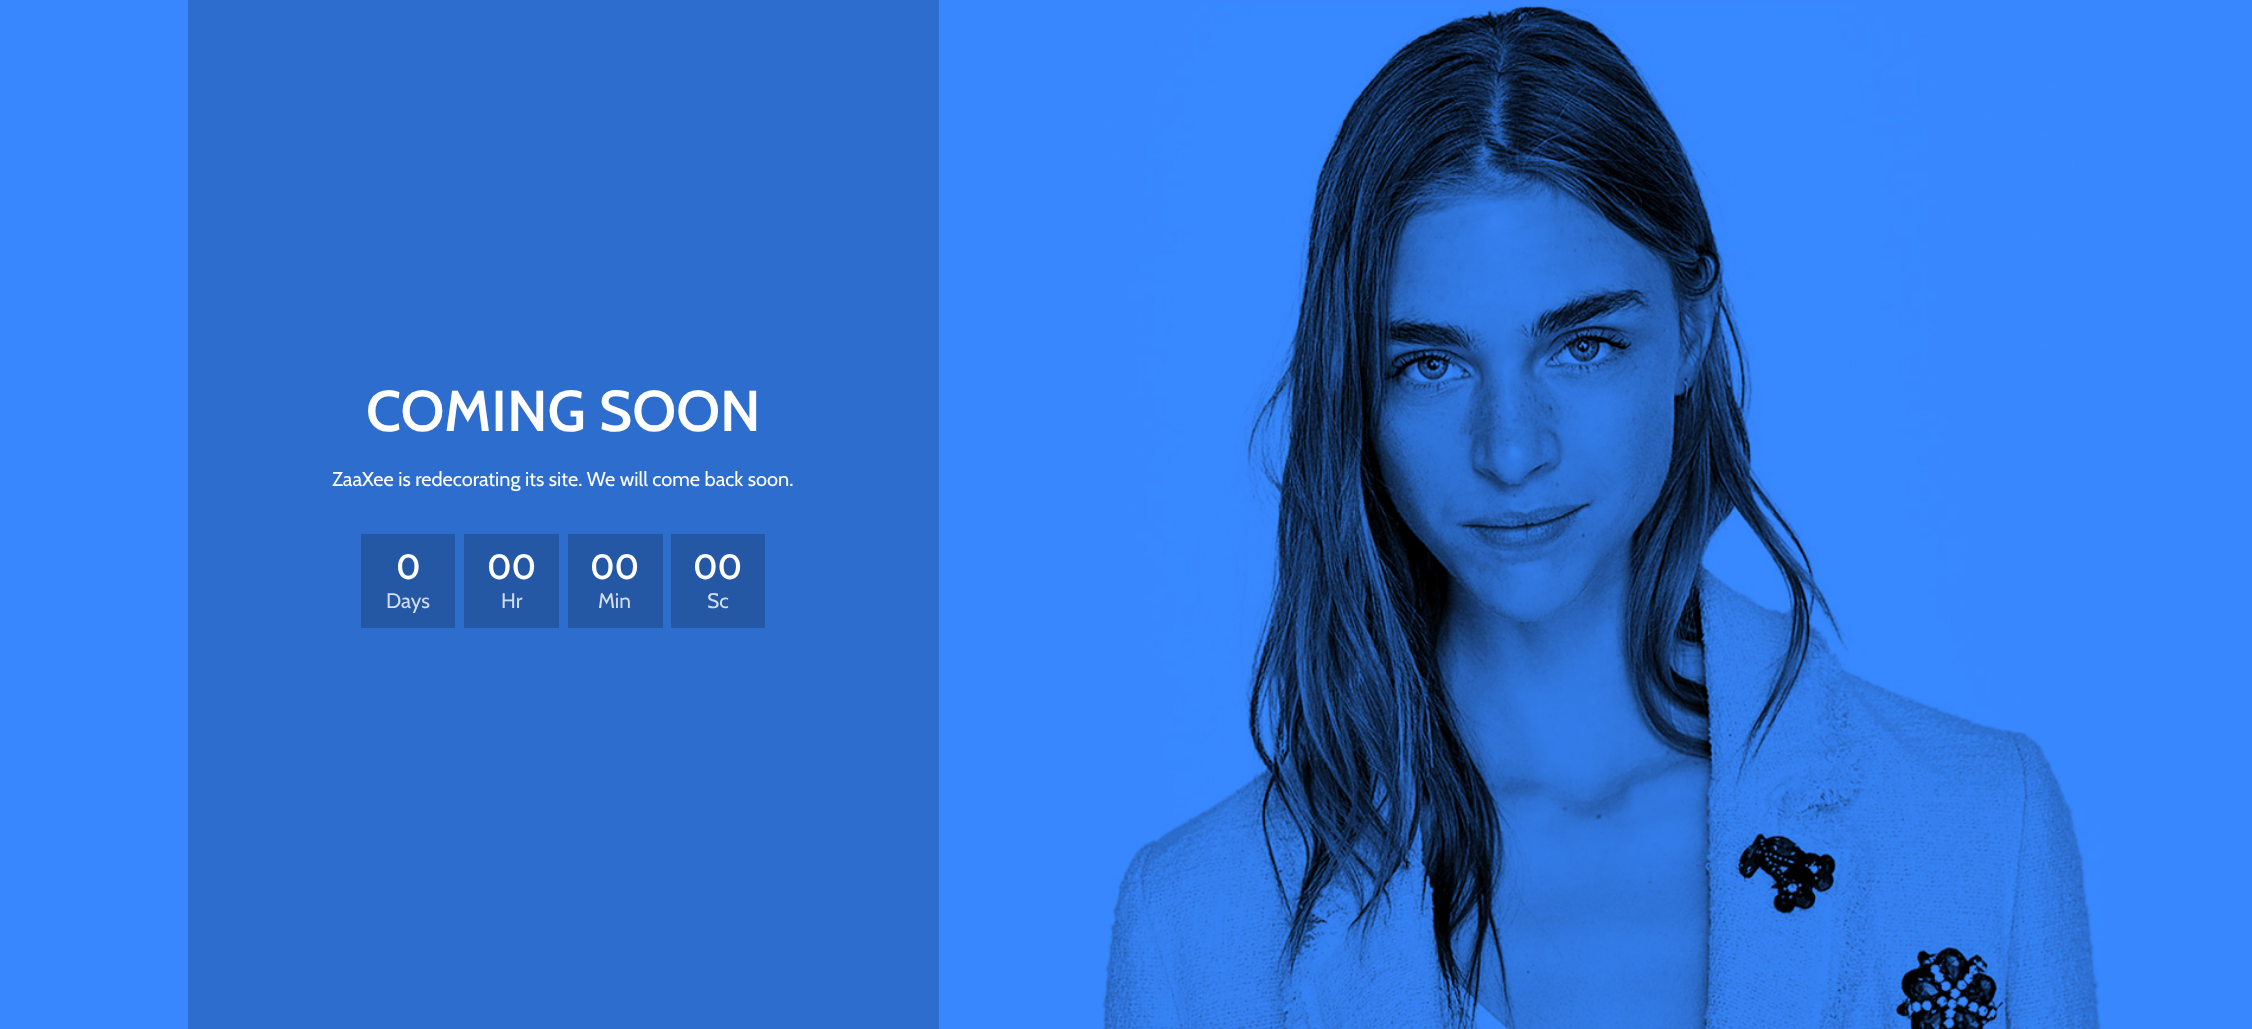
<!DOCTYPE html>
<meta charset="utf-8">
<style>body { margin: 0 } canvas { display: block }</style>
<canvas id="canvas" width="2252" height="1029"></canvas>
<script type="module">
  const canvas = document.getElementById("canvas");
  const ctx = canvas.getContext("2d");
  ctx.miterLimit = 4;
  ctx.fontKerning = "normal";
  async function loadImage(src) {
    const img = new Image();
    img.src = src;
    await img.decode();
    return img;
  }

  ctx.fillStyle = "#3887fe";
  ctx.fillRect(0, 0, 2252, 1029);
  ctx.drawImage(await loadImage("img1.png"), 1102, 5, 999, 1024);
  ctx.fillStyle = "#2d6dcd";
  ctx.fillRect(188, 0, 751, 1029);
  ctx.font = "600 57.5px Cabin";
  ctx.fillStyle = "#ffffff";
  ctx.fillText("COMING SOON", 366, 431);
  ctx.font = "20px Cabin";
  ctx.fillText("ZaaXee is redecorating its site. We will come back soon.", 332, 486);
  ctx.fillStyle = "#2457a4";
  ctx.fillRect(361, 534, 94, 94);
  ctx.font = "600 35px Cabin";
  ctx.fillStyle = "#ffffff";
  ctx.fillText("0", 396, 579);
  ctx.font = "21px Cabin";
  ctx.fillStyle = "#d3dded";
  ctx.fillText("Days", 386, 608);
  ctx.fillStyle = "#2457a4";
  ctx.fillRect(464, 534, 95, 94);
  ctx.font = "600 35px Cabin";
  ctx.fillStyle = "#ffffff";
  ctx.fillText("00", 487, 579);
  ctx.font = "21px Cabin";
  ctx.fillStyle = "#d3dded";
  ctx.fillText("Hr", 501, 608);
  ctx.fillStyle = "#2457a4";
  ctx.fillRect(568, 534, 95, 94);
  ctx.font = "600 35px Cabin";
  ctx.fillStyle = "#ffffff";
  ctx.fillText("00", 590, 579);
  ctx.font = "21px Cabin";
  ctx.fillStyle = "#d3dded";
  ctx.fillText("Min", 598, 608);
  ctx.fillStyle = "#2457a4";
  ctx.fillRect(671, 534, 94, 94);
  ctx.font = "600 35px Cabin";
  ctx.fillStyle = "#ffffff";
  ctx.fillText("00", 693, 579);
  ctx.font = "21px Cabin";
  ctx.fillStyle = "#d3dded";
  ctx.fillText("Sc", 707, 608);
</script>
